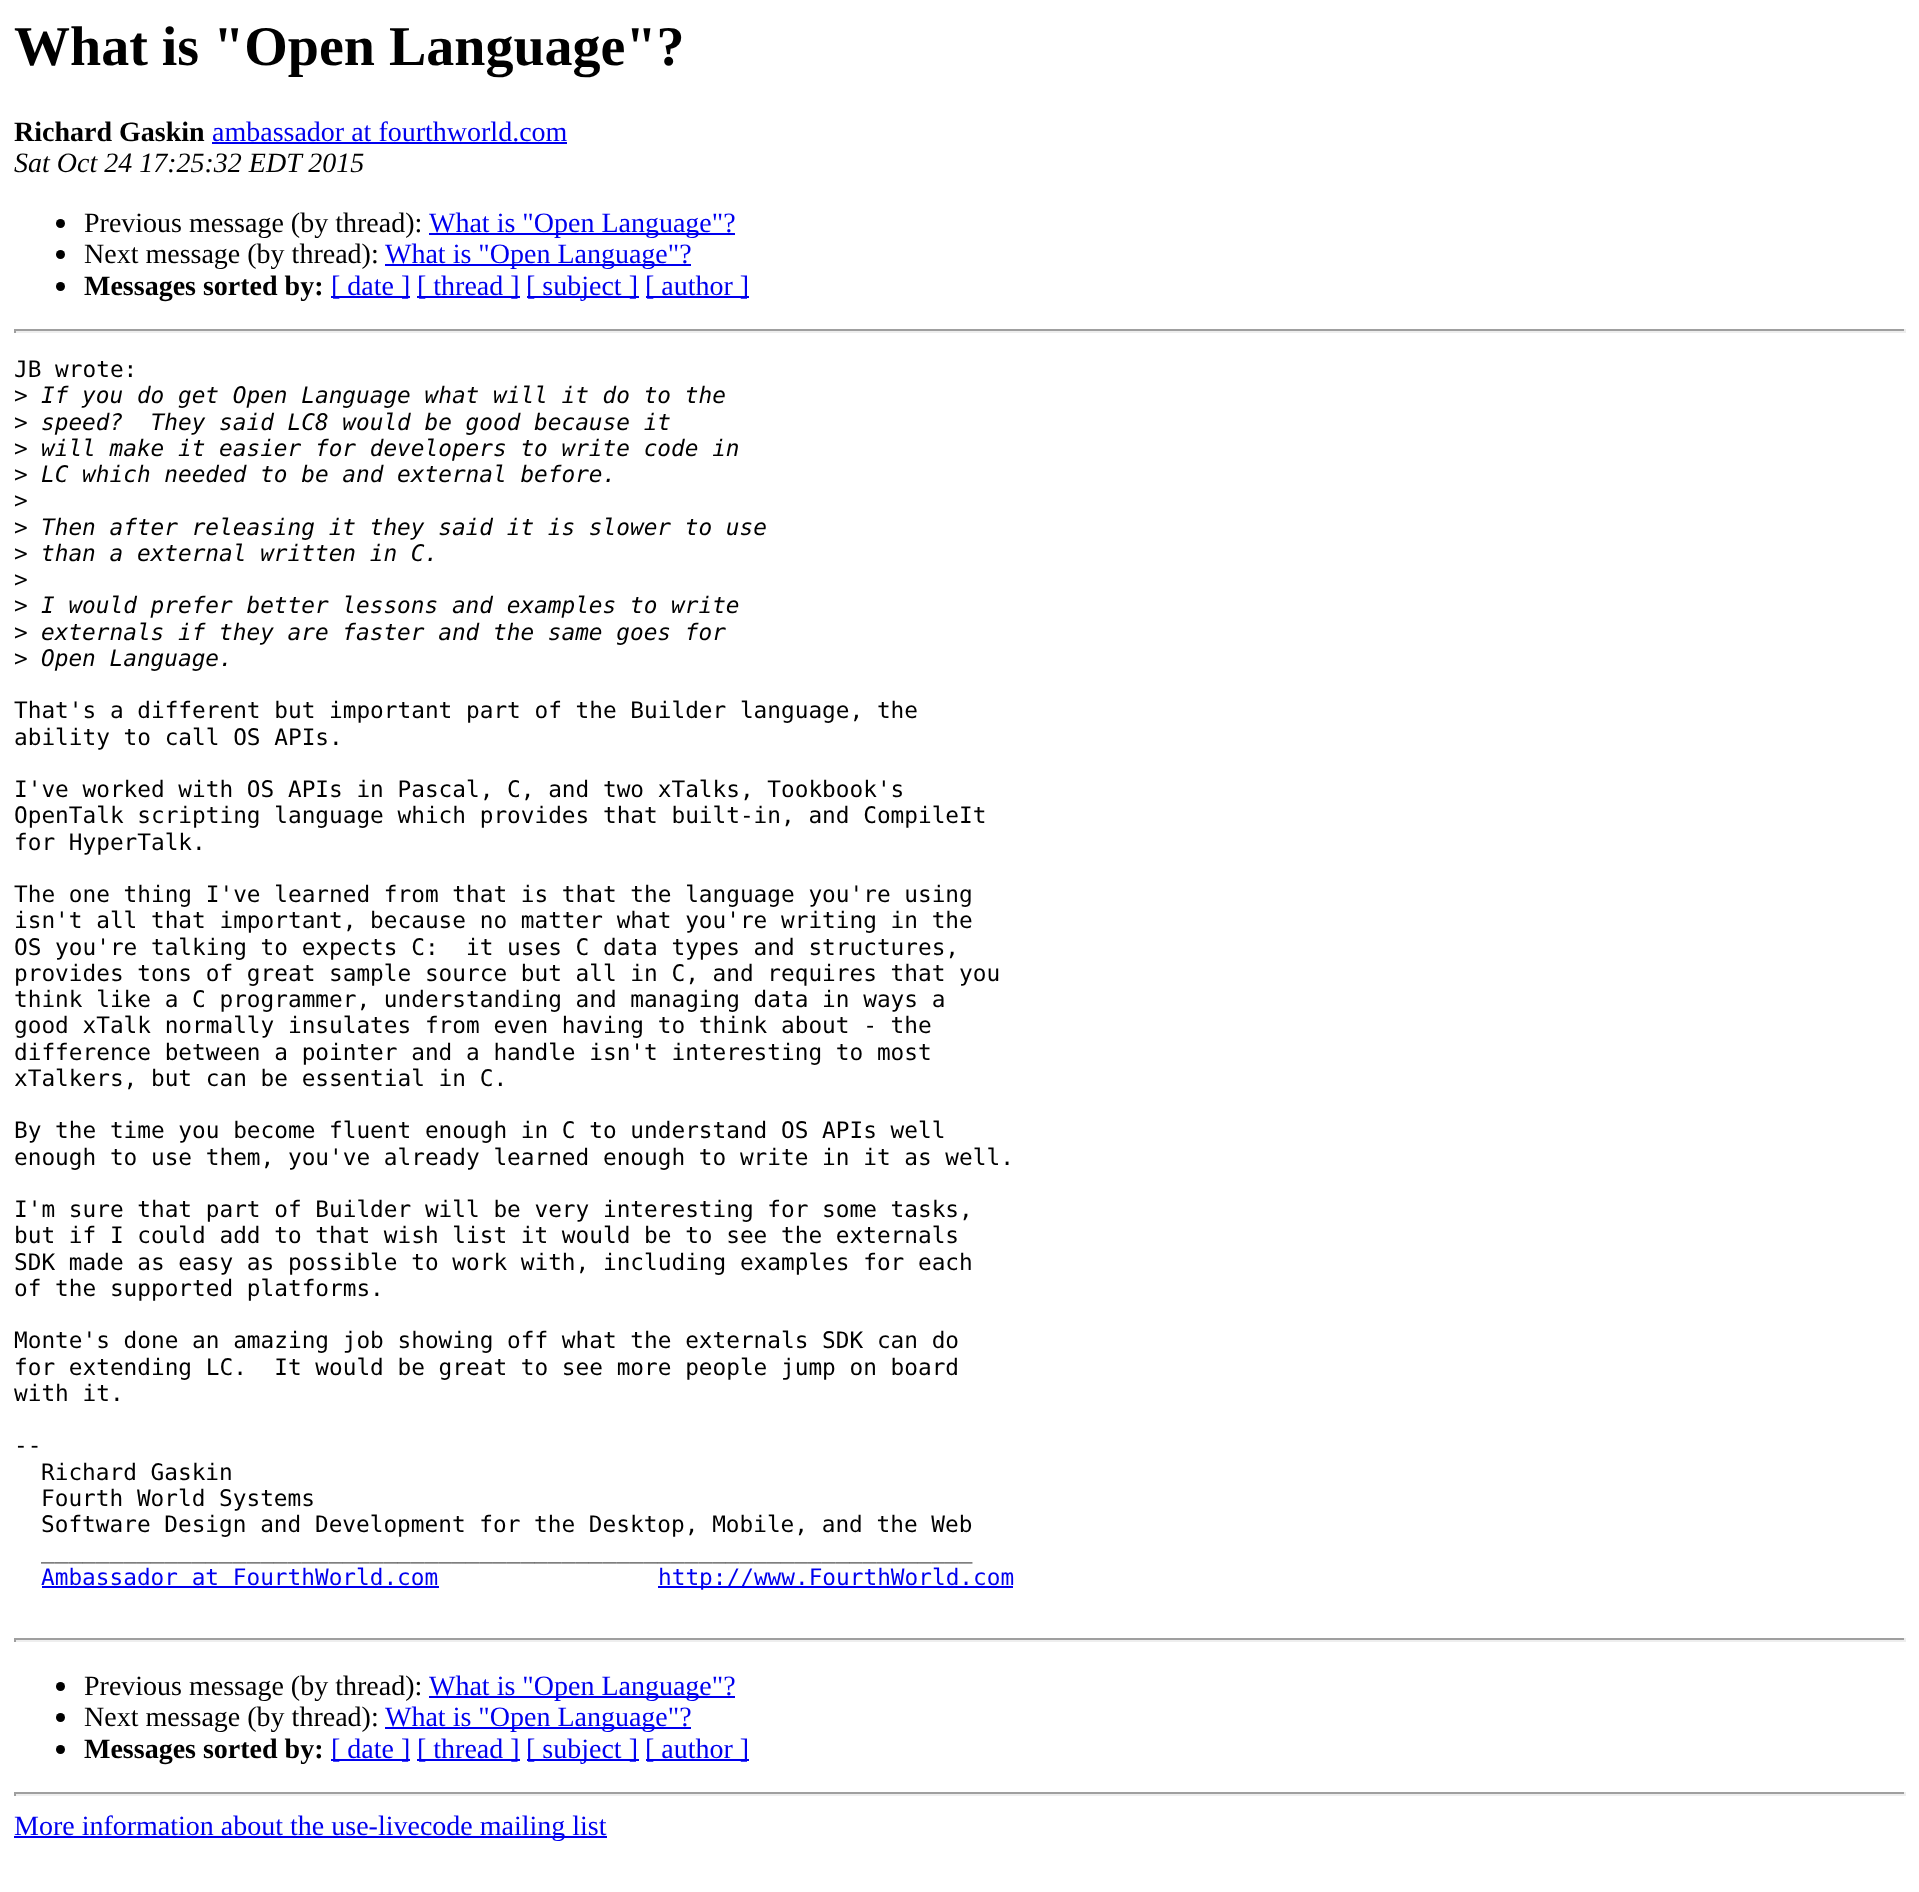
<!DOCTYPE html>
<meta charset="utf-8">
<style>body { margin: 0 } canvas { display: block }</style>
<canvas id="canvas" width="1919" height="1892"></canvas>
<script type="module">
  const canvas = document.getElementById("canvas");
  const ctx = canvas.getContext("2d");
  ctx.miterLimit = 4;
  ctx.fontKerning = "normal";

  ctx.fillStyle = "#ffffff";
  ctx.fillRect(0, 0, 1919, 1892);
  ctx.font = "bold 56px Liberation Serif";
  ctx.fillStyle = "#000000";
  ctx.fillText("What is \"Open Language\"?", 14, 65);
  ctx.font = "bold 28px Liberation Serif";
  ctx.fillText("Richard Gaskin", 14, 141);
  ctx.font = "28px Liberation Serif";
  ctx.fillStyle = "#0000ee";
  ctx.fillText("ambassador at fourthworld.com", 212, 141);
  ctx.fillRect(212, 142, 355, 2);
  ctx.font = "italic 28px Liberation Serif";
  ctx.fillStyle = "#000000";
  ctx.fillText("Sat Oct 24 17:25:32 EDT 2015", 14, 172);
  ctx.beginPath();
  ctx.arc(60.5, 223.5, 4.5, 0, Math.PI * 2);
  ctx.fill();
  ctx.font = "28px Liberation Serif";
  ctx.fillText("Previous message (by thread):", 84, 232);
  ctx.fillStyle = "#0000ee";
  ctx.fillRect(429, 233, 306, 2);
  ctx.fillText("What is \"Open Language\"?", 429, 232);
  ctx.fillStyle = "#000000";
  ctx.beginPath();
  ctx.arc(60.5, 254.5, 4.5, 0, Math.PI * 2);
  ctx.fill();
  ctx.fillText("Next message (by thread):", 84, 263);
  ctx.fillStyle = "#0000ee";
  ctx.fillRect(385, 264, 306, 2);
  ctx.fillText("What is \"Open Language\"?", 385, 263);
  ctx.fillStyle = "#000000";
  ctx.beginPath();
  ctx.arc(60.5, 286.5, 4.5, 0, Math.PI * 2);
  ctx.fill();
  ctx.font = "bold 28px Liberation Serif";
  ctx.fillText("Messages sorted by:", 84, 295);
  ctx.fillStyle = "#0000ee";
  ctx.fillRect(331, 296, 79, 2);
  ctx.font = "28px Liberation Serif";
  ctx.fillText("[ date ]", 331, 295);
  ctx.fillRect(417, 296, 103, 2);
  ctx.fillText("[ thread ]", 417, 295);
  ctx.fillRect(527, 296, 112, 2);
  ctx.fillText("[ subject ]", 526, 295);
  ctx.fillRect(646, 296, 103, 2);
  ctx.fillText("[ author ]", 645, 295);
  ctx.fillStyle = "#9f9f9f";
  ctx.fillRect(14, 329, 1892, 2);
  ctx.fillStyle = "#eeeeee";
  ctx.fillRect(1904, 329, 2, 4);
  ctx.fillRect(14, 331, 1892, 2);
  ctx.fillStyle = "#9f9f9f";
  ctx.fillRect(14, 329, 2, 4);
  ctx.font = "22.75px DejaVu Sans Mono";
  ctx.fillStyle = "#000000";
  ctx.fillText("JB wrote:", 14, 377);
  ctx.fillText(">", 14, 403);
  ctx.font = "italic 22.75px DejaVu Sans Mono";
  ctx.fillText("If you do get Open Language what will it do to the", 41, 403);
  ctx.font = "22.75px DejaVu Sans Mono";
  ctx.fillText(">", 14, 430);
  ctx.font = "italic 22.75px DejaVu Sans Mono";
  ctx.fillText("speed?  They said LC8 would be good because it", 41, 430);
  ctx.font = "22.75px DejaVu Sans Mono";
  ctx.fillText(">", 14, 456);
  ctx.font = "italic 22.75px DejaVu Sans Mono";
  ctx.fillText("will make it easier for developers to write code in", 41, 456);
  ctx.font = "22.75px DejaVu Sans Mono";
  ctx.fillText(">", 14, 482);
  ctx.font = "italic 22.75px DejaVu Sans Mono";
  ctx.fillText("LC which needed to be and external before.", 41, 482);
  ctx.font = "22.75px DejaVu Sans Mono";
  ctx.fillText(">", 14, 508);
  ctx.fillText(">", 14, 535);
  ctx.font = "italic 22.75px DejaVu Sans Mono";
  ctx.fillText("Then after releasing it they said it is slower to use", 41, 535);
  ctx.font = "22.75px DejaVu Sans Mono";
  ctx.fillText(">", 14, 561);
  ctx.font = "italic 22.75px DejaVu Sans Mono";
  ctx.fillText("than a external written in C.", 41, 561);
  ctx.font = "22.75px DejaVu Sans Mono";
  ctx.fillText(">", 14, 587);
  ctx.fillText(">", 14, 613);
  ctx.font = "italic 22.75px DejaVu Sans Mono";
  ctx.fillText("I would prefer better lessons and examples to write", 41, 613);
  ctx.font = "22.75px DejaVu Sans Mono";
  ctx.fillText(">", 14, 640);
  ctx.font = "italic 22.75px DejaVu Sans Mono";
  ctx.fillText("externals if they are faster and the same goes for", 41, 640);
  ctx.font = "22.75px DejaVu Sans Mono";
  ctx.fillText(">", 14, 666);
  ctx.font = "italic 22.75px DejaVu Sans Mono";
  ctx.fillText("Open Language.", 41, 666);
  ctx.font = "22.75px DejaVu Sans Mono";
  ctx.fillText("That's a different but important part of the Builder language, the", 14, 718);
  ctx.fillText("ability to call OS APIs.", 14, 745);
  ctx.fillText("I've worked with OS APIs in Pascal, C, and two xTalks, Tookbook's", 14, 797);
  ctx.fillText("OpenTalk scripting language which provides that built-in, and CompileIt", 14, 823);
  ctx.fillText("for HyperTalk.", 14, 850);
  ctx.fillText("The one thing I've learned from that is that the language you're using", 14, 902);
  ctx.fillText("isn't all that important, because no matter what you're writing in the", 14, 928);
  ctx.fillText("OS you're talking to expects C:  it uses C data types and structures,", 14, 955);
  ctx.fillText("provides tons of great sample source but all in C, and requires that you", 14, 981);
  ctx.fillText("think like a C programmer, understanding and managing data in ways a", 14, 1007);
  ctx.fillText("good xTalk normally insulates from even having to think about - the", 14, 1033);
  ctx.fillText("difference between a pointer and a handle isn't interesting to most", 14, 1060);
  ctx.fillText("xTalkers, but can be essential in C.", 14, 1086);
  ctx.fillText("By the time you become fluent enough in C to understand OS APIs well", 14, 1138);
  ctx.fillText("enough to use them, you've already learned enough to write in it as well.", 14, 1165);
  ctx.fillText("I'm sure that part of Builder will be very interesting for some tasks,", 14, 1217);
  ctx.fillText("but if I could add to that wish list it would be to see the externals", 14, 1243);
  ctx.fillText("SDK made as easy as possible to work with, including examples for each", 14, 1270);
  ctx.fillText("of the supported platforms.", 14, 1296);
  ctx.fillText("Monte's done an amazing job showing off what the externals SDK can do", 14, 1348);
  ctx.fillText("for extending LC.  It would be great to see more people jump on board", 14, 1375);
  ctx.fillText("with it.", 14, 1401);
  ctx.fillText("--", 14, 1453);
  ctx.fillText("Richard Gaskin", 41, 1480);
  ctx.fillText("Fourth World Systems", 41, 1506);
  ctx.fillText("Software Design and Development for the Desktop, Mobile, and the Web", 41, 1532);
  ctx.fillText("____________________________________________________________________", 41, 1558);
  ctx.fillStyle = "#0000ee";
  ctx.fillText("Ambassador at FourthWorld.com", 41, 1585);
  ctx.fillRect(42, 1586, 397, 2);
  ctx.fillRect(658, 1586, 355, 2);
  ctx.fillText("http://www.FourthWorld.com", 658, 1585);
  ctx.fillStyle = "#9f9f9f";
  ctx.fillRect(14, 1638, 1892, 2);
  ctx.fillStyle = "#eeeeee";
  ctx.fillRect(1904, 1638, 2, 4);
  ctx.fillRect(14, 1640, 1892, 2);
  ctx.fillStyle = "#9f9f9f";
  ctx.fillRect(14, 1638, 2, 4);
  ctx.fillStyle = "#000000";
  ctx.beginPath();
  ctx.arc(60.5, 1686.5, 4.5, 0, Math.PI * 2);
  ctx.fill();
  ctx.font = "28px Liberation Serif";
  ctx.fillText("Previous message (by thread):", 84, 1695);
  ctx.fillStyle = "#0000ee";
  ctx.fillRect(429, 1696, 306, 2);
  ctx.fillText("What is \"Open Language\"?", 429, 1695);
  ctx.fillStyle = "#000000";
  ctx.beginPath();
  ctx.arc(60.5, 1717.5, 4.5, 0, Math.PI * 2);
  ctx.fill();
  ctx.fillText("Next message (by thread):", 84, 1726);
  ctx.fillStyle = "#0000ee";
  ctx.fillRect(385, 1727, 306, 2);
  ctx.fillText("What is \"Open Language\"?", 385, 1726);
  ctx.fillStyle = "#000000";
  ctx.beginPath();
  ctx.arc(60.5, 1749.5, 4.5, 0, Math.PI * 2);
  ctx.fill();
  ctx.font = "bold 28px Liberation Serif";
  ctx.fillText("Messages sorted by:", 84, 1758);
  ctx.fillStyle = "#0000ee";
  ctx.fillRect(331, 1759, 79, 2);
  ctx.font = "28px Liberation Serif";
  ctx.fillText("[ date ]", 331, 1758);
  ctx.fillRect(417, 1759, 103, 2);
  ctx.fillText("[ thread ]", 417, 1758);
  ctx.fillRect(527, 1759, 112, 2);
  ctx.fillText("[ subject ]", 526, 1758);
  ctx.fillRect(646, 1759, 103, 2);
  ctx.fillText("[ author ]", 645, 1758);
  ctx.fillStyle = "#9f9f9f";
  ctx.fillRect(14, 1792, 1892, 2);
  ctx.fillStyle = "#eeeeee";
  ctx.fillRect(1904, 1792, 2, 4);
  ctx.fillRect(14, 1794, 1892, 2);
  ctx.fillStyle = "#9f9f9f";
  ctx.fillRect(14, 1792, 2, 4);
  ctx.fillStyle = "#0000ee";
  ctx.fillRect(14, 1836, 593, 2);
  ctx.fillText("More information about the use-livecode mailing list", 14, 1835);
</script>
